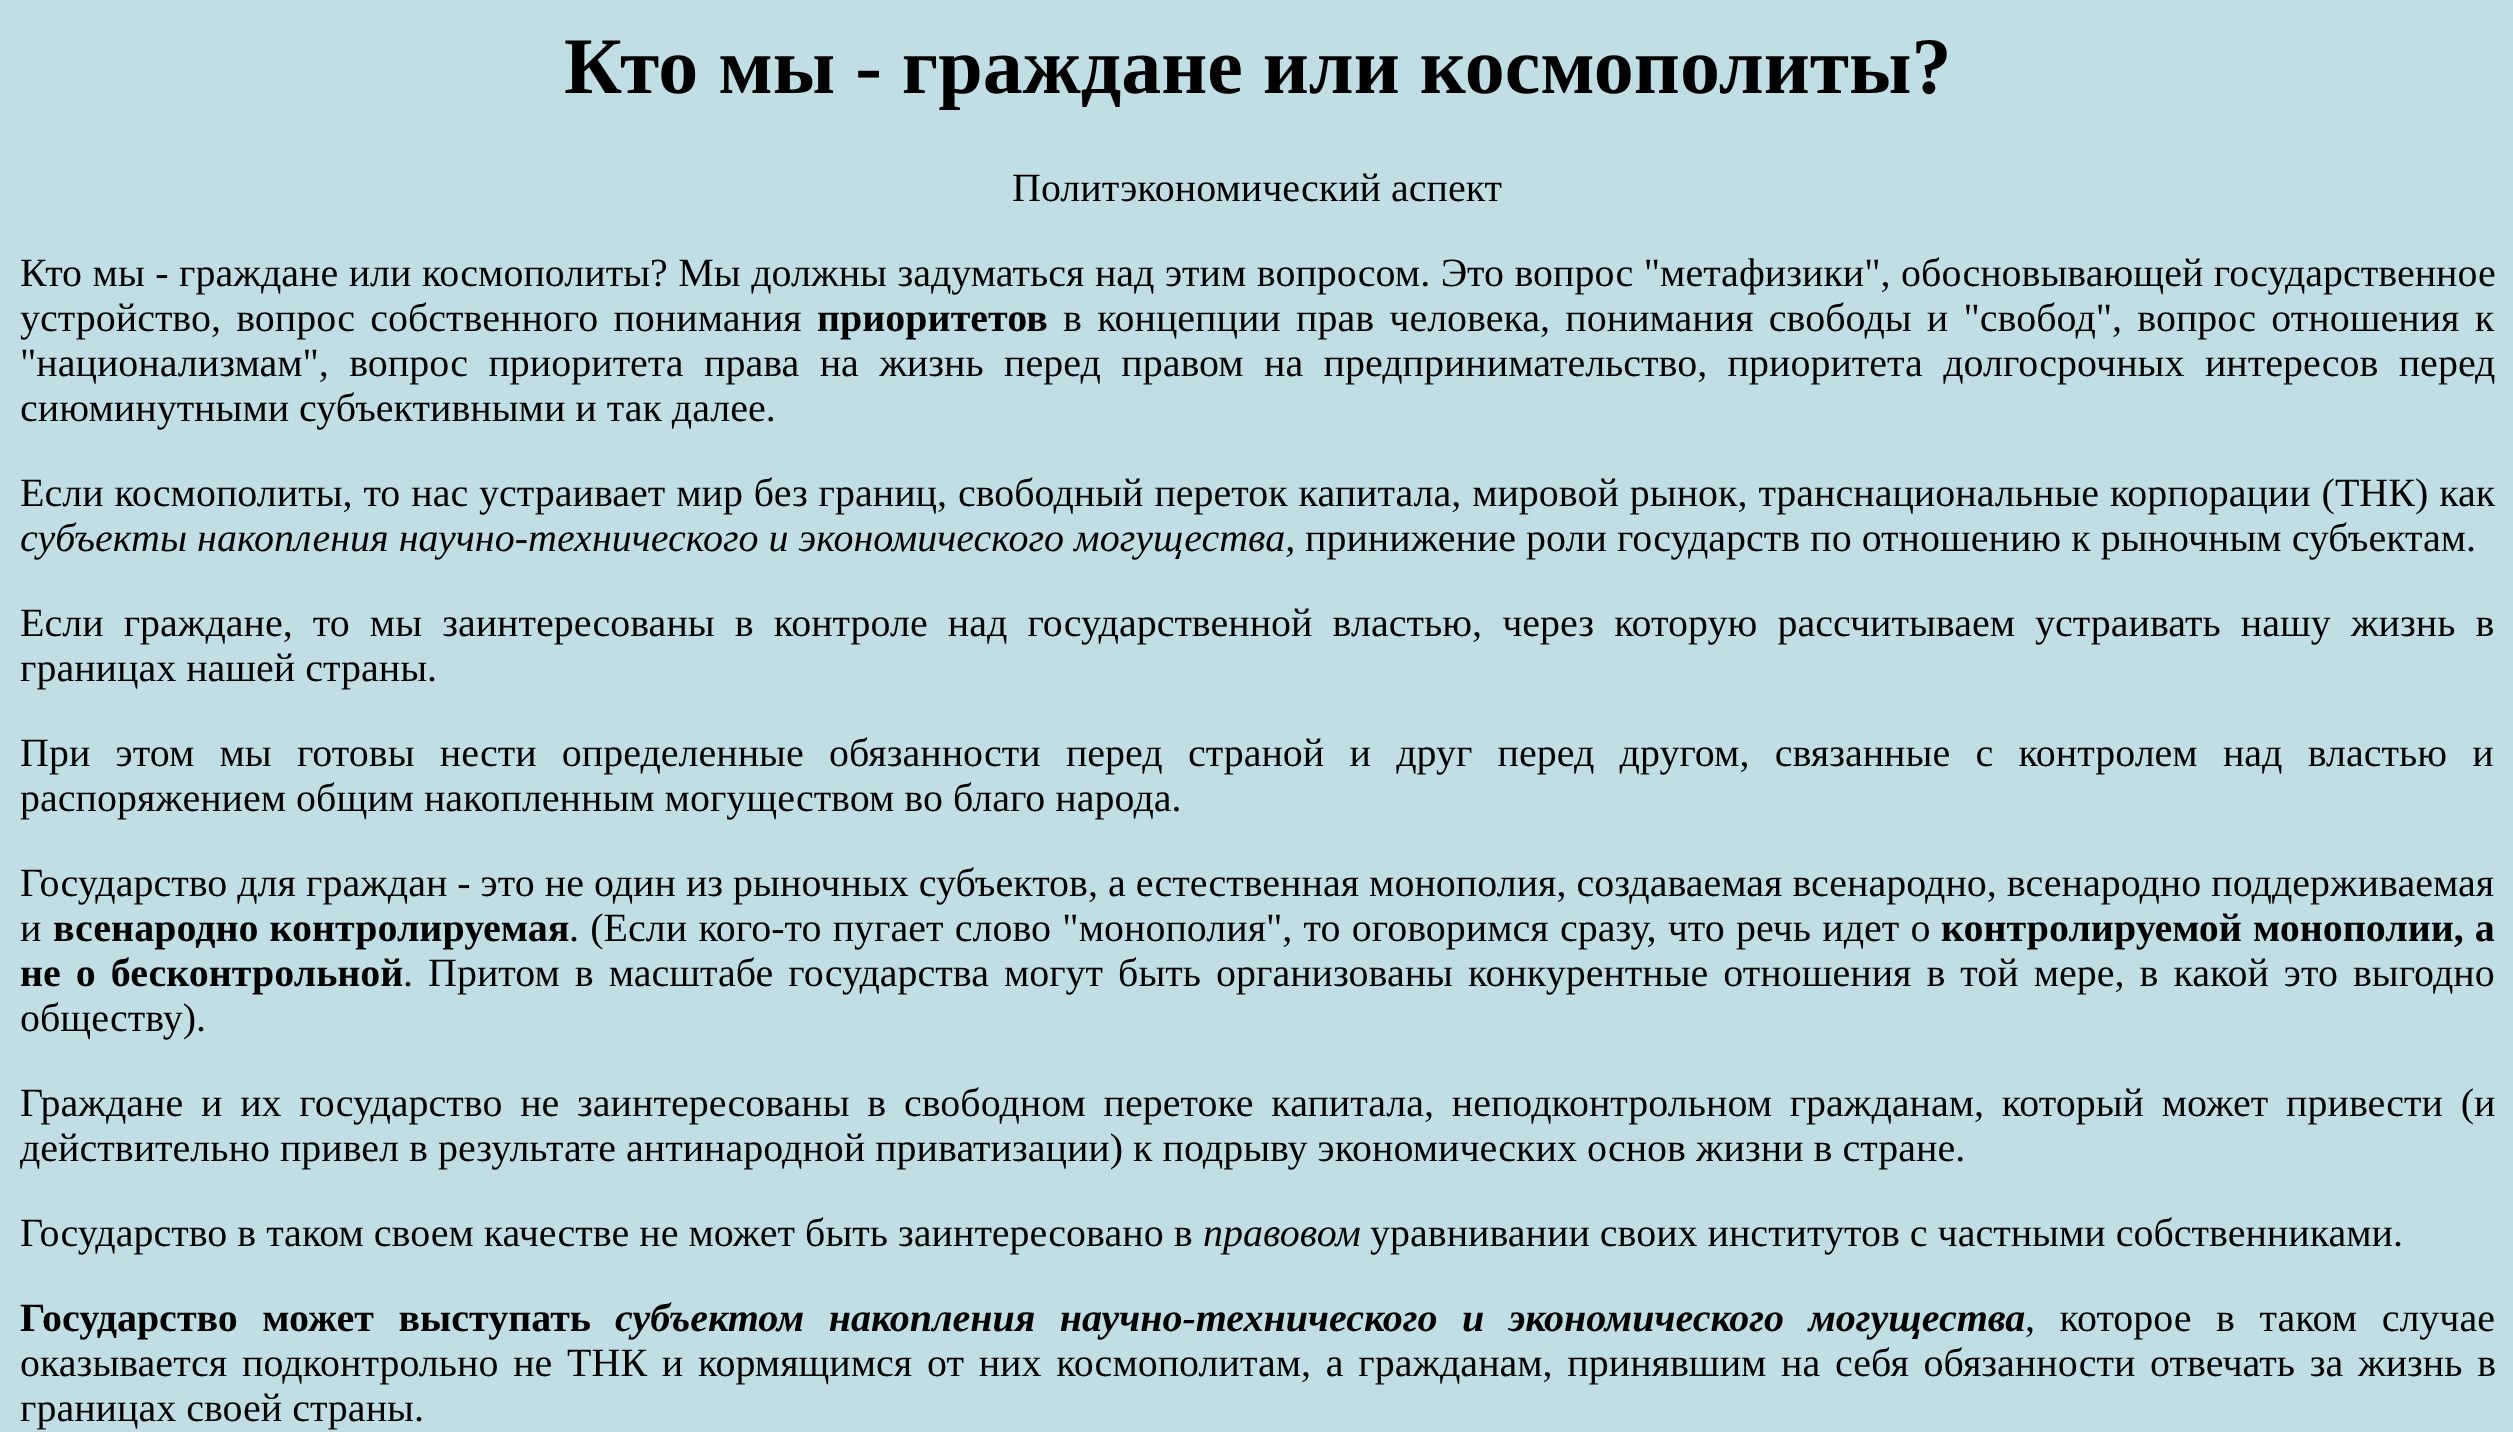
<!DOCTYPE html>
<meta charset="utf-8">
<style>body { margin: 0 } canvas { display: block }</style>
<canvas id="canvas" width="2513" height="1432"></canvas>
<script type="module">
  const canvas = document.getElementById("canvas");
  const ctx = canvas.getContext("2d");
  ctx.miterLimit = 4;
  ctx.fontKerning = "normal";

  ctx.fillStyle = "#c0dee4";
  ctx.fillRect(0, 0, 2513, 1432);
  ctx.font = "bold 80px Liberation Serif";
  ctx.fillStyle = "#000000";
  ctx.fillText("Кто мы - граждане или космополиты?", 564, 93);
  ctx.font = "40px Liberation Serif";
  ctx.fillText("Политэкономический аспект", 1012, 201);
  ctx.wordSpacing = "0.5px";
  ctx.fillText("Кто мы - граждане или космополиты? Мы должны задуматься над этим вопросом. Это вопрос \"метафизики\", обосновывающей государственное", 20, 286);
  ctx.wordSpacing = "5.25px";
  ctx.fillText("устройство, вопрос собственного понимания", 20, 331);
  ctx.wordSpacing = "0px";
  ctx.font = "bold 40px Liberation Serif";
  ctx.fillText("приоритетов", 817, 331);
  ctx.wordSpacing = "5.25px";
  ctx.font = "40px Liberation Serif";
  ctx.fillText("в концепции прав человека, понимания свободы и \"свобод\", вопрос отношения к", 1063, 331);
  ctx.wordSpacing = "10.4px";
  ctx.fillText("\"национализмам\", вопрос приоритета права на жизнь перед правом на предпринимательство, приоритета долгосрочных интересов перед", 20, 376);
  ctx.wordSpacing = "0px";
  ctx.fillText("сиюминутными субъективными и так далее.", 20, 421);
  ctx.wordSpacing = "0.9px";
  ctx.fillText("Если космополиты, то нас устраивает мир без границ, свободный переток капитала, мировой рынок, транснациональные корпорации (ТНК) как", 20, 506);
  ctx.wordSpacing = "0px";
  ctx.font = "italic 40px Liberation Serif";
  ctx.fillText("субъекты накопления научно-технического и экономического могущества,", 20, 551);
  ctx.font = "40px Liberation Serif";
  ctx.fillText("принижение роли государств по отношению к рыночным субъектам.", 1305, 551);
  ctx.wordSpacing = "10.1px";
  ctx.fillText("Если граждане, то мы заинтересованы в контроле над государственной властью, через которую рассчитываем устраивать нашу жизнь в", 20, 636);
  ctx.wordSpacing = "0px";
  ctx.fillText("границах нашей страны.", 20, 681);
  ctx.wordSpacing = "15.25px";
  ctx.fillText("При этом мы готовы нести определенные обязанности перед страной и друг перед другом, связанные с контролем над властью и", 20, 766);
  ctx.wordSpacing = "0px";
  ctx.fillText("распоряжением общим накопленным могуществом во благо народа.", 20, 811);
  ctx.fillText("Государство для граждан - это не один из рыночных субъектов, а естественная монополия, создаваемая всенародно, всенародно поддерживаемая", 20, 896);
  ctx.fillText("и", 20, 941);
  ctx.wordSpacing = "1px";
  ctx.font = "bold 40px Liberation Serif";
  ctx.fillText("всенародно контролируемая", 53, 941);
  ctx.wordSpacing = "1.25px";
  ctx.font = "40px Liberation Serif";
  ctx.fillText(". (Если кого-то пугает слово \"монополия\", то оговоримся сразу, что речь идет о", 569, 941);
  ctx.wordSpacing = "1px";
  ctx.font = "bold 40px Liberation Serif";
  ctx.fillText("контролируемой монополии, а", 1941, 941);
  ctx.wordSpacing = "5px";
  ctx.fillText("не о бесконтрольной", 20, 986);
  ctx.font = "40px Liberation Serif";
  ctx.fillText(". Притом в масштабе государства могут быть организованы конкурентные отношения в той мере, в какой это выгодно", 403, 986);
  ctx.wordSpacing = "0px";
  ctx.fillText("обществу).", 20, 1031);
  ctx.wordSpacing = "7.75px";
  ctx.fillText("Граждане и их государство не заинтересованы в свободном перетоке капитала, неподконтрольном гражданам, который может привести (и", 20, 1116);
  ctx.wordSpacing = "0px";
  ctx.fillText("действительно привел в результате антинародной приватизации) к подрыву экономических основ жизни в стране.", 20, 1161);
  ctx.fillText("Государство в таком своем качестве не может быть заинтересовано в", 20, 1246);
  ctx.font = "italic 40px Liberation Serif";
  ctx.fillText("правовом", 1203, 1246);
  ctx.font = "40px Liberation Serif";
  ctx.fillText("уравнивании своих институтов с частными собственниками.", 1370, 1246);
  ctx.wordSpacing = "14.5px";
  ctx.font = "bold 40px Liberation Serif";
  ctx.fillText("Государство может выступать", 20, 1331);
  ctx.font = "italic bold 40px Liberation Serif";
  ctx.fillText("субъектом накопления научно-технического и экономического могущества", 615, 1331);
  ctx.font = "40px Liberation Serif";
  ctx.fillText(", которое в таком случае", 2025, 1331);
  ctx.wordSpacing = "4.75px";
  ctx.fillText("оказывается подконтрольно не ТНК и кормящимся от них космополитам, а гражданам, принявшим на себя обязанности отвечать за жизнь в", 20, 1376);
  ctx.wordSpacing = "0px";
  ctx.fillText("границах своей страны.", 20, 1421);
</script>
